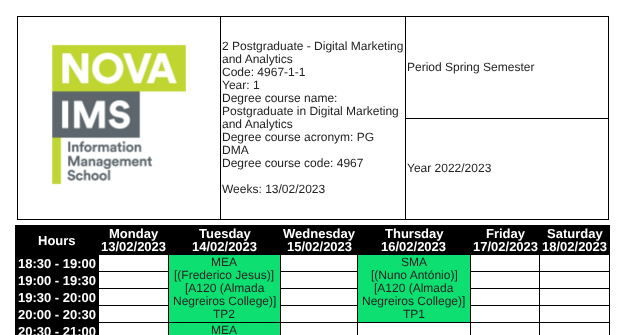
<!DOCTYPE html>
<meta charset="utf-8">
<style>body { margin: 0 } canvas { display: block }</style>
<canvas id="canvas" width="625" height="335"></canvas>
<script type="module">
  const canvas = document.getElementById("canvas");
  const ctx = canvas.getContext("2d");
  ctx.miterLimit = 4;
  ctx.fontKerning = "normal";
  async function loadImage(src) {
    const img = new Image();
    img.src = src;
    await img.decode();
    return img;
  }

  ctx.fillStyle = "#ffffff";
  ctx.fillRect(0, 0, 625, 335);
  ctx.fillStyle = "#000000";
  ctx.fillRect(405, 16, 204, 1);
  ctx.fillRect(405, 118, 204, 1);
  ctx.fillRect(608, 118, 1, 102);
  ctx.fillRect(405, 219, 204, 1);
  ctx.fillRect(405, 118, 1, 102);
  ctx.fillRect(405, 16, 1, 103);
  ctx.fillRect(220, 16, 186, 1);
  ctx.fillRect(220, 219, 186, 1);
  ctx.fillRect(220, 16, 1, 204);
  ctx.fillRect(17, 16, 204, 1);
  ctx.fillRect(17, 219, 204, 1);
  ctx.fillRect(17, 16, 1, 204);
  ctx.drawImage(await loadImage("img1.png"), 51, 44, 136, 142);
  ctx.font = "12px Liberation Sans";
  ctx.fillStyle = "#222222";
  ctx.fillText("2 Postgraduate - Digital Marketing", 222, 50);
  ctx.fillText("and Analytics", 222, 63);
  ctx.fillText("Code: 4967-1-1", 222, 76);
  ctx.fillText("Year: 1", 222, 89);
  ctx.fillText("Degree course name:", 222, 102);
  ctx.fillText("Postgraduate in Digital Marketing", 222, 115);
  ctx.fillText("and Analytics", 222, 128);
  ctx.fillText("Degree course acronym: PG", 222, 141);
  ctx.fillText("DMA", 222, 154);
  ctx.fillText("Degree course code: 4967", 222, 167);
  ctx.fillText("Weeks: 13/02/2023", 222, 193);
  ctx.fillStyle = "#000000";
  ctx.fillRect(608, 16, 1, 103);
  ctx.fillStyle = "#222222";
  ctx.fillText("Period Spring Semester", 407, 71);
  ctx.fillText("Year 2022/2023", 407, 172);
  ctx.fillStyle = "#000000";
  ctx.fillRect(16, 226, 83, 28);
  ctx.fillRect(15, 225, 595, 1);
  ctx.fillRect(15, 254, 84, 1);
  ctx.fillRect(15, 271, 154, 1);
  ctx.fillRect(15, 288, 154, 1);
  ctx.fillRect(15, 305, 154, 1);
  ctx.fillRect(539, 322, 71, 1);
  ctx.fillRect(539, 322, 1, 13);
  ctx.fillRect(470, 322, 70, 1);
  ctx.fillRect(470, 322, 1, 13);
  ctx.fillRect(357, 322, 114, 1);
  ctx.fillRect(357, 322, 1, 13);
  ctx.fillRect(280, 322, 78, 1);
  ctx.fillRect(280, 322, 1, 13);
  ctx.fillRect(168, 322, 113, 1);
  ctx.fillRect(168, 322, 1, 13);
  ctx.fillRect(15, 322, 154, 1);
  ctx.fillRect(15, 322, 1, 13);
  ctx.fillRect(15, 305, 1, 18);
  ctx.fillRect(15, 288, 1, 18);
  ctx.fillRect(15, 271, 1, 18);
  ctx.fillRect(15, 254, 1, 18);
  ctx.fillRect(15, 225, 1, 30);
  ctx.font = "bold 13px Liberation Sans";
  ctx.fillStyle = "#ffffff";
  ctx.fillText("Hours", 38, 245);
  ctx.fillStyle = "#000000";
  ctx.fillRect(99, 226, 511, 29);
  ctx.fillStyle = "#ffffff";
  ctx.fillText("Monday", 109, 238);
  ctx.fillText("13/02/2023", 101, 251);
  ctx.fillText("Tuesday", 199, 238);
  ctx.fillText("14/02/2023", 192, 251);
  ctx.fillText("Wednesday", 283, 238);
  ctx.fillText("15/02/2023", 287, 251);
  ctx.fillText("Thursday", 385, 238);
  ctx.fillText("16/02/2023", 381, 251);
  ctx.fillText("Friday", 486, 238);
  ctx.fillText("17/02/2023", 473, 251);
  ctx.fillText("Saturday", 547, 238);
  ctx.fillText("18/02/2023", 542, 251);
  ctx.fillStyle = "#000000";
  ctx.fillRect(16, 255, 83, 16);
  ctx.fillStyle = "#ffffff";
  ctx.fillText("18:30 - 19:00", 18, 268);
  ctx.fillStyle = "#0edf71";
  ctx.fillRect(169, 255, 111, 67);
  ctx.fillStyle = "#000000";
  ctx.fillRect(168, 254, 1, 69);
  ctx.font = "12px Liberation Sans";
  ctx.fillStyle = "#222222";
  ctx.fillText("MEA", 211, 266);
  ctx.fillText("[(Frederico Jesus)]", 174, 279);
  ctx.fillText("[A120 (Almada", 185, 292);
  ctx.fillText("Negreiros College)]", 173, 305);
  ctx.fillText("TP2", 213, 318);
  ctx.fillStyle = "#0edf71";
  ctx.fillRect(358, 255, 112, 67);
  ctx.fillStyle = "#000000";
  ctx.fillRect(280, 271, 78, 1);
  ctx.fillRect(280, 288, 78, 1);
  ctx.fillRect(280, 305, 78, 1);
  ctx.fillRect(357, 254, 1, 69);
  ctx.fillStyle = "#222222";
  ctx.fillText("SMA", 401, 266);
  ctx.fillText("[(Nuno António)]", 371, 279);
  ctx.fillText("[A120 (Almada", 374, 292);
  ctx.fillText("Negreiros College)]", 362, 305);
  ctx.fillText("TP1", 403, 318);
  ctx.fillStyle = "#000000";
  ctx.fillRect(539, 271, 71, 1);
  ctx.fillRect(539, 288, 71, 1);
  ctx.fillRect(539, 305, 71, 1);
  ctx.fillRect(539, 305, 1, 18);
  ctx.fillRect(470, 305, 70, 1);
  ctx.fillRect(539, 288, 1, 18);
  ctx.fillRect(470, 288, 70, 1);
  ctx.fillRect(539, 271, 1, 18);
  ctx.fillRect(470, 271, 70, 1);
  ctx.fillRect(539, 254, 1, 18);
  ctx.fillRect(280, 305, 1, 18);
  ctx.fillRect(280, 288, 1, 18);
  ctx.fillRect(280, 254, 1, 35);
  ctx.fillRect(470, 305, 1, 18);
  ctx.fillRect(470, 288, 1, 18);
  ctx.fillRect(470, 254, 1, 35);
  ctx.fillRect(609, 322, 1, 13);
  ctx.fillRect(609, 305, 1, 18);
  ctx.fillRect(609, 288, 1, 18);
  ctx.fillRect(609, 254, 1, 35);
  ctx.fillRect(16, 272, 83, 16);
  ctx.font = "bold 13px Liberation Sans";
  ctx.fillStyle = "#ffffff";
  ctx.fillText("19:00 - 19:30", 18, 285);
  ctx.fillStyle = "#000000";
  ctx.fillRect(16, 289, 83, 16);
  ctx.fillStyle = "#ffffff";
  ctx.fillText("19:30 - 20:00", 18, 302);
  ctx.fillStyle = "#000000";
  ctx.fillRect(16, 306, 83, 16);
  ctx.fillStyle = "#ffffff";
  ctx.fillText("20:00 - 20:30", 18, 319);
  ctx.fillStyle = "#0edf71";
  ctx.fillRect(169, 323, 111, 12);
  ctx.font = "12px Liberation Sans";
  ctx.fillStyle = "#222222";
  ctx.fillText("MEA", 211, 334);
  ctx.fillStyle = "#000000";
  ctx.fillRect(16, 323, 83, 12);
  ctx.font = "bold 13px Liberation Sans";
  ctx.fillStyle = "#ffffff";
  ctx.fillText("20:30 - 21:00", 18, 336);
</script>
